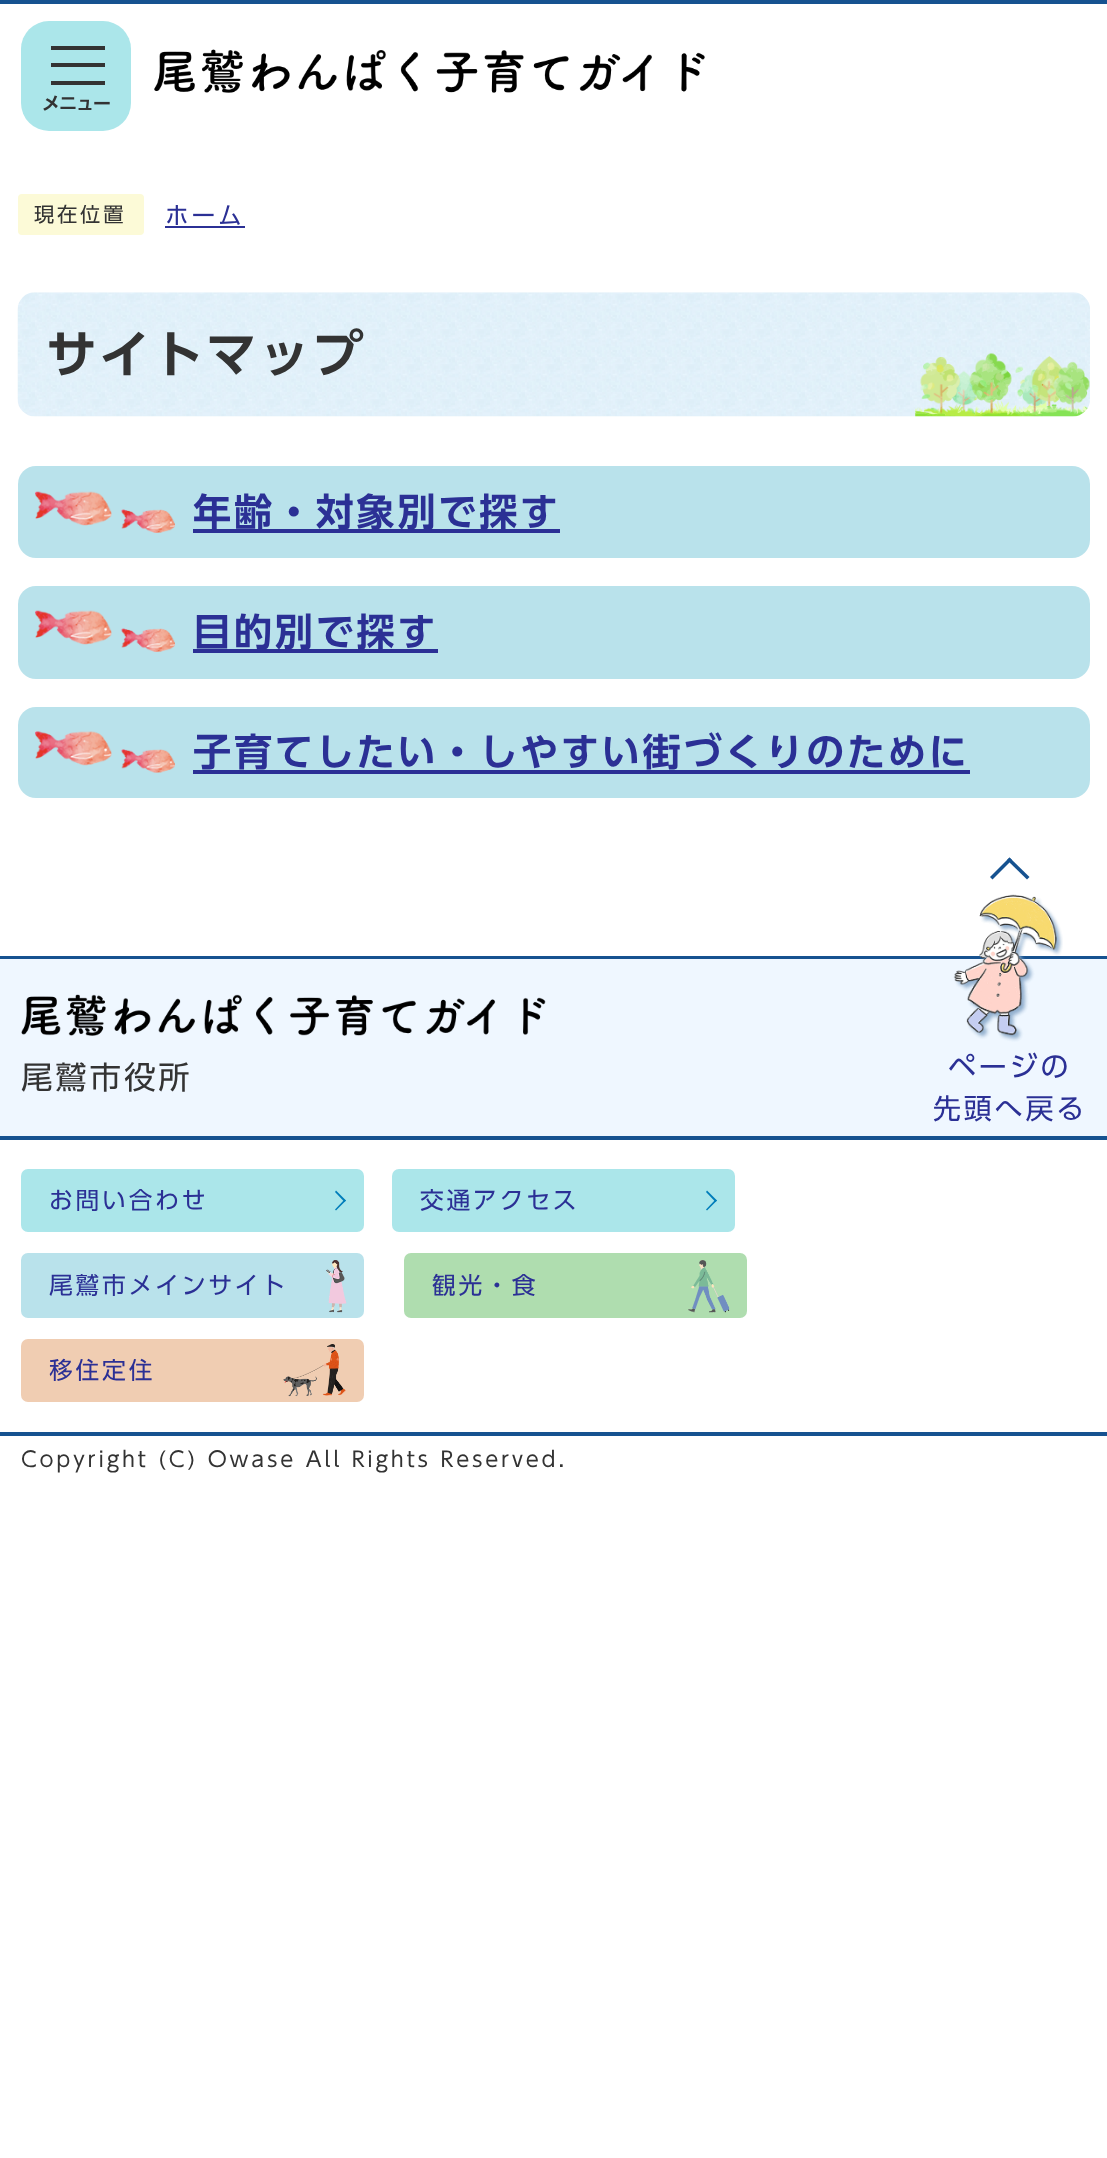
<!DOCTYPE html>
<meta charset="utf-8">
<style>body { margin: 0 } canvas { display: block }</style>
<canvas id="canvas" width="1107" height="2158"></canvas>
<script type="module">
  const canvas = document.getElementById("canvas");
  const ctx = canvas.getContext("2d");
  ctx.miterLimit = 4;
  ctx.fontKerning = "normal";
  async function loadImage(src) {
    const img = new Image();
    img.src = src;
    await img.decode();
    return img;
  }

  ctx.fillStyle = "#ffffff";
  ctx.fillRect(0, 0, 1107, 2158);
  ctx.fillStyle = "#165290";
  ctx.fillRect(0, 0, 1107, 4);
  ctx.drawImage(await loadImage("img1.png"), 154, 49, 551, 44);
  ctx.fillStyle = "#abe6ea";
  ctx.beginPath();
  ctx.roundRect(21, 21, 110, 110, 28);
  ctx.fill();
  ctx.fillStyle = "#333333";
  ctx.fillRect(51, 46, 54, 4);
  ctx.fillRect(51, 63, 54, 4);
  ctx.fillRect(51, 81, 54, 4);
  ctx.letterSpacing = "-1px";
  ctx.font = "600 18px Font";
  ctx.fillText("メニュー", 42, 110);
  ctx.fillStyle = "#fcfad7";
  ctx.beginPath();
  ctx.roundRect(18, 194, 126, 41, 4);
  ctx.fill();
  ctx.letterSpacing = "2.8px";
  ctx.font = "20.25px Font";
  ctx.fillStyle = "#333333";
  ctx.fillText("現在位置", 34, 222);
  ctx.font = "23.75px Font";
  ctx.fillStyle = "#2b3095";
  ctx.fillText("ホーム", 165, 224);
  ctx.fillRect(165, 226, 80, 2);
  ctx.drawImage(await loadImage("img2.png"), 17, 292, 1073, 125);
  ctx.font = "600 50.5px Font";
  ctx.fillStyle = "#333333";
  ctx.fillText("サイトマップ", 46, 373);
  ctx.fillStyle = "#b9e2eb";
  ctx.beginPath();
  ctx.roundRect(18, 466, 1072, 92, 18);
  ctx.fill();
  ctx.drawImage(await loadImage("img3.png"), 35, 491, 140, 42);
  ctx.fillStyle = "#2b3095";
  ctx.fillRect(193, 529, 367, 4);
  ctx.font = "600 38.1px Font";
  ctx.fillText("年齢・対象別で探す", 193, 526);
  ctx.fillStyle = "#b9e2eb";
  ctx.beginPath();
  ctx.roundRect(18, 586, 1072, 93, 18);
  ctx.fill();
  ctx.drawImage(await loadImage("img3.png"), 35, 610, 140, 42);
  ctx.fillStyle = "#2b3095";
  ctx.fillRect(193, 649, 245, 4);
  ctx.fillText("目的別で探す", 193, 646);
  ctx.fillStyle = "#b9e2eb";
  ctx.beginPath();
  ctx.roundRect(18, 707, 1072, 91, 18);
  ctx.fill();
  ctx.drawImage(await loadImage("img4.png"), 35, 731, 140, 42);
  ctx.fillStyle = "#2b3095";
  ctx.fillText("子育てしたい・しやすい街づくりのために", 193, 766);
  ctx.fillRect(193, 770, 777, 4);
  ctx.fillStyle = "#165290";
  ctx.fillRect(0, 956, 1107, 3);
  ctx.fillStyle = "#eff7ff";
  ctx.fillRect(0, 959, 1107, 177);
  ctx.fillStyle = "#165290";
  ctx.fillRect(0, 1136, 1107, 4);
  ctx.drawImage(await loadImage("img5.png"), 21, 994, 525, 42);
  ctx.font = "31.5px Font";
  ctx.fillStyle = "#333333";
  ctx.fillText("尾鷲市役所", 21, 1089);
  ctx.fillStyle = "#abe6ea";
  ctx.beginPath();
  ctx.roundRect(21, 1169, 343, 63, 7);
  ctx.fill();
  ctx.font = "23.75px Font";
  ctx.fillStyle = "#2b3095";
  ctx.fillText("お問い合わせ", 49, 1209);
  ctx.fillStyle = "#007dba";
  ctx.beginPath();
  ctx.moveTo(335, 1192);
  ctx.lineTo(336, 1190.5);
  ctx.lineTo(346, 1200.5);
  ctx.lineTo(344.5, 1202);
  ctx.closePath();
  ctx.fill();
  ctx.beginPath();
  ctx.moveTo(335, 1209.5);
  ctx.lineTo(344.5, 1199.5);
  ctx.lineTo(346, 1200.5);
  ctx.lineTo(336, 1210.5);
  ctx.closePath();
  ctx.fill();
  ctx.fillStyle = "#abe6ea";
  ctx.beginPath();
  ctx.roundRect(392, 1169, 343, 63, 7);
  ctx.fill();
  ctx.fillStyle = "#2b3095";
  ctx.fillText("交通アクセス", 420, 1209);
  ctx.fillStyle = "#007dba";
  ctx.beginPath();
  ctx.moveTo(706, 1192);
  ctx.lineTo(707, 1190.5);
  ctx.lineTo(717, 1200.5);
  ctx.lineTo(715.5, 1202);
  ctx.closePath();
  ctx.fill();
  ctx.beginPath();
  ctx.moveTo(706, 1209.5);
  ctx.lineTo(715.5, 1199.5);
  ctx.lineTo(717, 1200.5);
  ctx.lineTo(707, 1210.5);
  ctx.closePath();
  ctx.fill();
  ctx.fillStyle = "#b9e2eb";
  ctx.beginPath();
  ctx.roundRect(21, 1253, 343, 65, 7);
  ctx.fill();
  ctx.drawImage(await loadImage("img6.png"), 326, 1260, 21, 53);
  ctx.fillStyle = "#2b3095";
  ctx.fillText("尾鷲市メインサイト", 49, 1294);
  ctx.fillStyle = "#afddaf";
  ctx.beginPath();
  ctx.roundRect(404, 1253, 343, 65, 7);
  ctx.fill();
  ctx.drawImage(await loadImage("img7.png"), 688, 1260, 42, 53);
  ctx.fillStyle = "#2b3095";
  ctx.fillText("観光・食", 432, 1294);
  ctx.fillStyle = "#f0cdb2";
  ctx.beginPath();
  ctx.roundRect(21, 1339, 343, 63, 7);
  ctx.fill();
  ctx.drawImage(await loadImage("img8.png"), 283, 1344, 63, 53);
  ctx.fillStyle = "#2b3095";
  ctx.fillText("移住定住", 49, 1379);
  ctx.fillStyle = "#165290";
  ctx.fillRect(0, 1432, 1107, 4);
  ctx.font = "21px Font";
  ctx.fillStyle = "#333333";
  ctx.fillText("Copyright (C) Owase All Rights Reserved.", 21, 1467);
  ctx.fillStyle = "#165290";
  ctx.beginPath();
  ctx.moveTo(1009.5, 857.5);
  ctx.lineTo(1029.5, 877);
  ctx.lineTo(1027, 879.5);
  ctx.lineTo(1007, 860);
  ctx.closePath();
  ctx.fill();
  ctx.beginPath();
  ctx.moveTo(1009.5, 857.5);
  ctx.lineTo(1012, 860);
  ctx.lineTo(992.5, 879.5);
  ctx.lineTo(990, 877);
  ctx.closePath();
  ctx.fill();
  ctx.drawImage(await loadImage("img9.png"), 953, 894, 110, 148);
  ctx.font = "28px Font";
  ctx.fillStyle = "#2b3095";
  ctx.fillText("ページの", 948, 1077);
  ctx.fillText("先頭へ戻る", 933, 1119);
</script>
